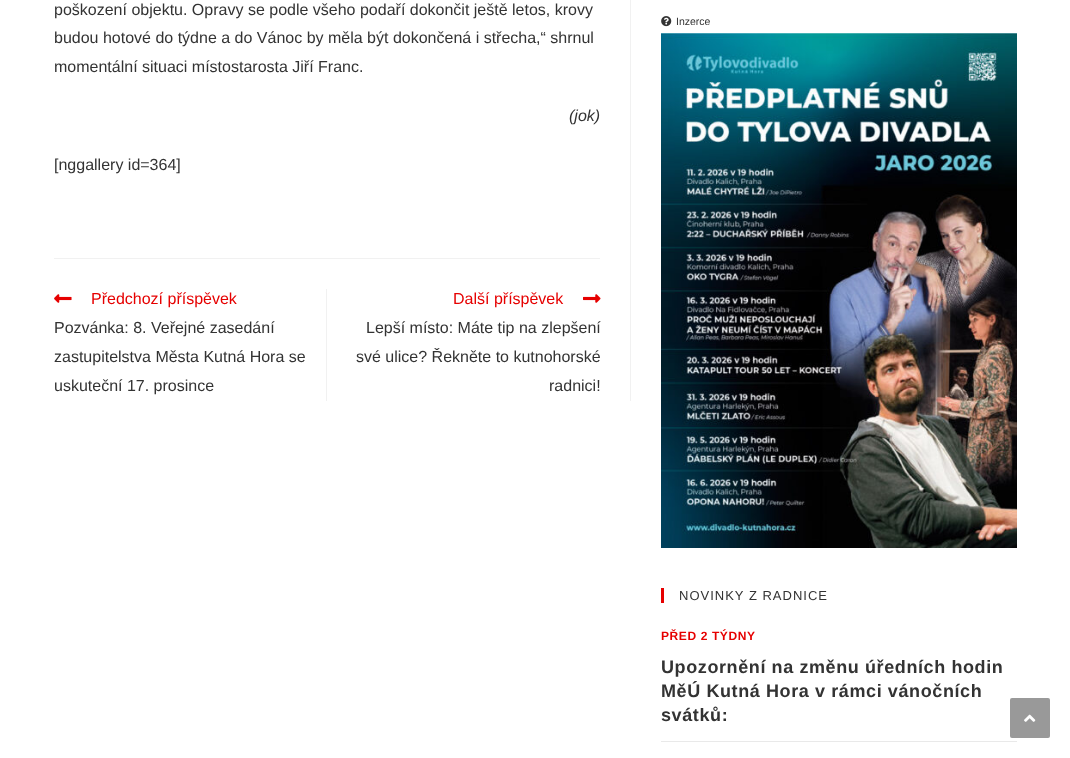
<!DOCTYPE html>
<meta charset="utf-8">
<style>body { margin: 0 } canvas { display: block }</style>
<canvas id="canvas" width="1070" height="758"></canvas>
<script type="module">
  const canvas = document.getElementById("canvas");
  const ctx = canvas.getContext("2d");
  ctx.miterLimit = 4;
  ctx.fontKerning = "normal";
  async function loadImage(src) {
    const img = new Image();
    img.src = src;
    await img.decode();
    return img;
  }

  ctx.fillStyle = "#ffffff";
  ctx.fillRect(0, 0, 1070, 758);
  ctx.fillStyle = "#f1f1f1";
  ctx.fillRect(630, 0, 1, 401);
  ctx.font = "16px Liberation Sans";
  ctx.fillStyle = "#333333";
  ctx.fillText("poškození objektu. Opravy se podle všeho podaří dokončit ještě letos, krovy", 54, 15);
  ctx.fillText("budou hotové do týdne a do Vánoc by měla být dokončená i střecha,“ shrnul", 54, 43);
  ctx.fillText("momentální situaci místostarosta Jiří Franc.", 54, 72);
  ctx.font = "italic 16px Liberation Sans";
  ctx.fillText("(jok)", 569, 121);
  ctx.font = "16px Liberation Sans";
  ctx.fillText("[nggallery id=364]", 54, 170);
  ctx.fillStyle = "#f1f1f1";
  ctx.fillRect(54, 258, 546, 1);
  ctx.fillRect(326, 289, 1, 112);
  ctx.drawImage(await loadImage("img1.png"), 54, 294, 18, 9);
  ctx.fillStyle = "#e60000";
  ctx.fillText("Předchozí příspěvek", 91, 304);
  ctx.fillStyle = "#333333";
  ctx.fillText("Pozvánka: 8. Veřejné zasedání", 54, 333);
  ctx.fillText("zastupitelstva Města Kutná Hora se", 54, 362);
  ctx.fillText("uskuteční 17. prosince", 54, 391);
  ctx.fillStyle = "#e60000";
  ctx.fillText("Další příspěvek", 453, 304);
  ctx.drawImage(await loadImage("img2.png"), 583, 294, 18, 9);
  ctx.fillStyle = "#333333";
  ctx.fillText("Lepší místo: Máte tip na zlepšení", 366, 333);
  ctx.fillText("své ulice? Řekněte to kutnohorské", 356, 362);
  ctx.fillText("radnici!", 549, 391);
  ctx.drawImage(await loadImage("img3.png"), 661, 16, 11, 11);
  ctx.font = "10.5px Liberation Sans";
  ctx.fillText("Inzerce", 676, 25);
  ctx.drawImage(await loadImage("img4.png"), 661, 33, 356, 515);
  ctx.fillStyle = "#e60000";
  ctx.fillRect(661, 588, 3, 15);
  ctx.letterSpacing = "1px";
  ctx.font = "13px Liberation Sans";
  ctx.fillStyle = "#333333";
  ctx.fillText("NOVINKY Z RADNICE", 679, 600);
  ctx.letterSpacing = "0.6px";
  ctx.font = "bold 12px Liberation Sans";
  ctx.fillStyle = "#e60000";
  ctx.fillText("PŘED 2 TÝDNY", 661, 640);
  ctx.font = "bold 18px Liberation Sans";
  ctx.fillStyle = "#333333";
  ctx.fillText("Upozornění na změnu úředních hodin", 661, 673);
  ctx.fillText("MěÚ Kutná Hora v rámci vánočních", 661, 697);
  ctx.fillText("svátků:", 661, 721);
  ctx.fillStyle = "#e9e9e9";
  ctx.fillRect(661, 741, 356, 1);
  ctx.fillStyle = "#999999";
  ctx.beginPath();
  ctx.roundRect(1010, 698, 40, 40, 2);
  ctx.fill();
  ctx.drawImage(await loadImage("img5.png"), 1024, 714, 12, 8);
</script>
